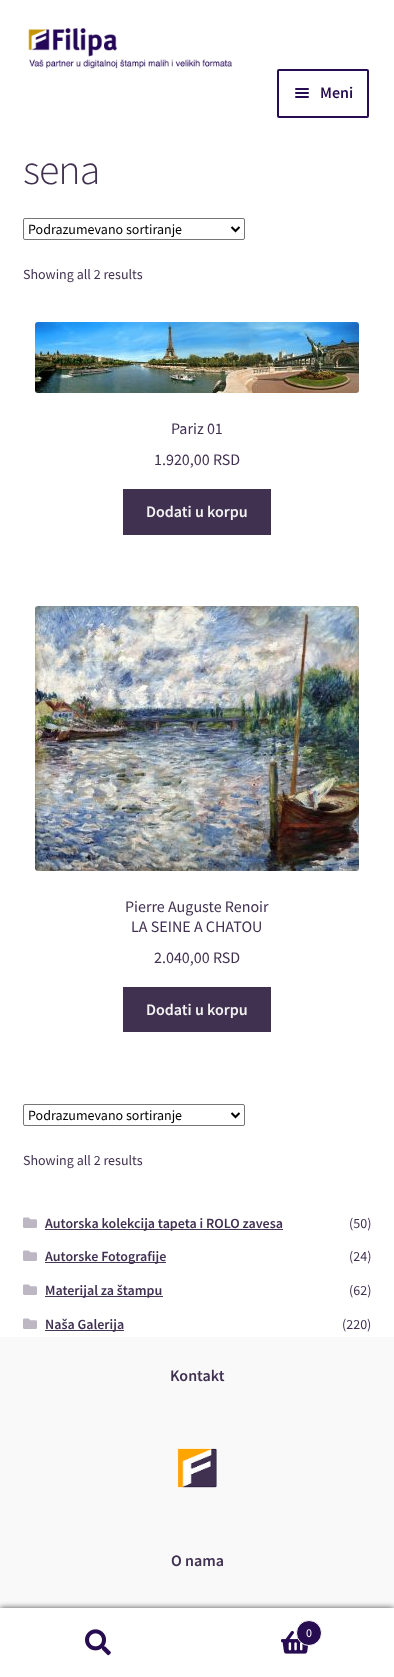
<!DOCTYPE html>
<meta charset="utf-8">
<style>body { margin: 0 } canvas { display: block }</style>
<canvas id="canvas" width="394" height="1677"></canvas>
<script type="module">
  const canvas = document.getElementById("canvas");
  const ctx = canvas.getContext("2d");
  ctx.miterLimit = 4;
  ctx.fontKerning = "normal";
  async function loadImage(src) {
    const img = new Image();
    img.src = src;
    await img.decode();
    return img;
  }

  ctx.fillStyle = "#ffffff";
  ctx.fillRect(0, 0, 394, 1677);
  ctx.drawImage(await loadImage("img1.png"), 28, 28, 205, 41);
  ctx.beginPath();
  ctx.roundRect(278, 70, 90, 47, 1);
  ctx.strokeStyle = "#270c51";
  ctx.lineWidth = 2;
  ctx.stroke();
  ctx.fillStyle = "#270c51";
  ctx.beginPath();
  ctx.roundRect(295, 88, 14, 2, 1);
  ctx.fill();
  ctx.beginPath();
  ctx.roundRect(295, 92, 14, 2, 1);
  ctx.fill();
  ctx.font = "600 16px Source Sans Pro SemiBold";
  ctx.fillText("Meni", 320, 98);
  ctx.beginPath();
  ctx.roundRect(295, 96, 14, 2, 1);
  ctx.fill();
  ctx.letterSpacing = "-1px";
  ctx.font = "300 42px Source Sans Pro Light";
  ctx.fillStyle = "#403151";
  ctx.fillText("sena", 23, 184);
  ctx.beginPath();
  ctx.roundRect(23.5, 218.5, 221, 21, 1.5);
  ctx.strokeStyle = "#767676";
  ctx.lineWidth = 1;
  ctx.stroke();
  ctx.beginPath();
  ctx.moveTo(231.5, 227);
  ctx.lineTo(235.5, 231);
  ctx.lineTo(239.5, 227);
  ctx.strokeStyle = "#000000";
  ctx.lineWidth = 2;
  ctx.stroke();
  ctx.letterSpacing = "0px";
  ctx.font = "14px Source Sans Pro";
  ctx.fillStyle = "#000000";
  ctx.fillText("Podrazumevano sortiranje", 28, 234);
  ctx.fillStyle = "#403151";
  ctx.fillText("Showing all 2 results", 23, 279);
  ctx.drawImage(await loadImage("img2.png"), 35, 322, 324, 71);
  ctx.font = "16px Source Sans Pro";
  ctx.fillText("Pariz 01", 171, 434);
  ctx.fillText("1.920,00 RSD", 154, 465);
  ctx.fillRect(123, 489, 148, 46);
  ctx.font = "600 16px Source Sans Pro SemiBold";
  ctx.fillStyle = "#f2f2f2";
  ctx.fillText("Dodati u korpu", 146, 517);
  ctx.drawImage(await loadImage("img3.png"), 35, 606, 324, 265);
  ctx.font = "16px Source Sans Pro";
  ctx.fillStyle = "#403151";
  ctx.fillText("Pierre Auguste Renoir", 125, 912);
  ctx.fillText("LA SEINE A CHATOU", 131, 932);
  ctx.fillText("2.040,00 RSD", 154, 963);
  ctx.fillRect(123, 987, 148, 45);
  ctx.font = "600 16px Source Sans Pro SemiBold";
  ctx.fillStyle = "#f2f2f2";
  ctx.fillText("Dodati u korpu", 146, 1015);
  ctx.beginPath();
  ctx.roundRect(23.5, 1104.5, 221, 21, 1.5);
  ctx.strokeStyle = "#767676";
  ctx.lineWidth = 1;
  ctx.stroke();
  ctx.beginPath();
  ctx.moveTo(231.5, 1113);
  ctx.lineTo(235.5, 1117);
  ctx.lineTo(239.5, 1113);
  ctx.strokeStyle = "#000000";
  ctx.lineWidth = 2;
  ctx.stroke();
  ctx.font = "14px Source Sans Pro";
  ctx.fillStyle = "#000000";
  ctx.fillText("Podrazumevano sortiranje", 28, 1120);
  ctx.fillStyle = "#403151";
  ctx.fillText("Showing all 2 results", 23, 1165);
  ctx.drawImage(await loadImage("img4.png"), 23, 1217, 14, 11);
  ctx.fillStyle = "#453656";
  ctx.fillRect(45, 1229, 238, 1);
  ctx.font = "600 14px Source Sans Pro SemiBold";
  ctx.fillStyle = "#403151";
  ctx.fillText("Autorska kolekcija tapeta i ROLO zavesa", 45, 1228);
  ctx.font = "14px Source Sans Pro";
  ctx.fillText("(50)", 349, 1228);
  ctx.drawImage(await loadImage("img4.png"), 23, 1250, 14, 11);
  ctx.fillStyle = "#453656";
  ctx.fillRect(45, 1262, 121, 1);
  ctx.font = "600 14px Source Sans Pro SemiBold";
  ctx.fillStyle = "#403151";
  ctx.fillText("Autorske Fotografije", 45, 1261);
  ctx.font = "14px Source Sans Pro";
  ctx.fillText("(24)", 349, 1261);
  ctx.drawImage(await loadImage("img4.png"), 23, 1284, 14, 11);
  ctx.fillStyle = "#453656";
  ctx.fillRect(45, 1296, 118, 1);
  ctx.font = "600 14px Source Sans Pro SemiBold";
  ctx.fillStyle = "#403151";
  ctx.fillText("Materijal za štampu", 45, 1295);
  ctx.font = "14px Source Sans Pro";
  ctx.fillText("(62)", 349, 1295);
  ctx.drawImage(await loadImage("img4.png"), 23, 1318, 14, 11);
  ctx.fillStyle = "#453656";
  ctx.fillRect(45, 1330, 79, 1);
  ctx.font = "600 14px Source Sans Pro SemiBold";
  ctx.fillStyle = "#403151";
  ctx.fillText("Naša Galerija", 45, 1329);
  ctx.font = "14px Source Sans Pro";
  ctx.fillText("(220)", 342, 1329);
  ctx.fillStyle = "#f9f9f9";
  ctx.fillRect(0, 1337, 394, 271);
  ctx.font = "600 16px Source Sans Pro SemiBold";
  ctx.fillStyle = "#403151";
  ctx.fillText("Kontakt", 170, 1381);
  ctx.drawImage(await loadImage("img5.png"), 177, 1448, 40, 40);
  ctx.fillText("O nama", 171, 1566);
  ctx.fillStyle = "rgba(0, 0, 0, 0.7)";
  ctx.filter = "blur(3px)";
  ctx.beginPath();
  ctx.rect(0, 1608, 394, 69);
  ctx.fill();
  ctx.filter = "none";
  ctx.fillStyle = "#ffffff";
  ctx.fillRect(0, 1608, 394, 1);
  ctx.fillRect(0, 1609, 394, 68);
  ctx.drawImage(await loadImage("img6.png"), 85, 1629, 26, 27);
  ctx.drawImage(await loadImage("img7.png"), 281, 1631, 28, 23);
  ctx.fillStyle = "#270c51";
  ctx.beginPath();
  ctx.arc(309, 1633, 12.5, 0, Math.PI * 2);
  ctx.fill();
  ctx.strokeStyle = "#ffffff";
  ctx.lineWidth = 1;
  ctx.stroke();
  ctx.font = "12px Source Sans Pro";
  ctx.fillStyle = "#ffffff";
  ctx.fillText("0", 306, 1637);
</script>
